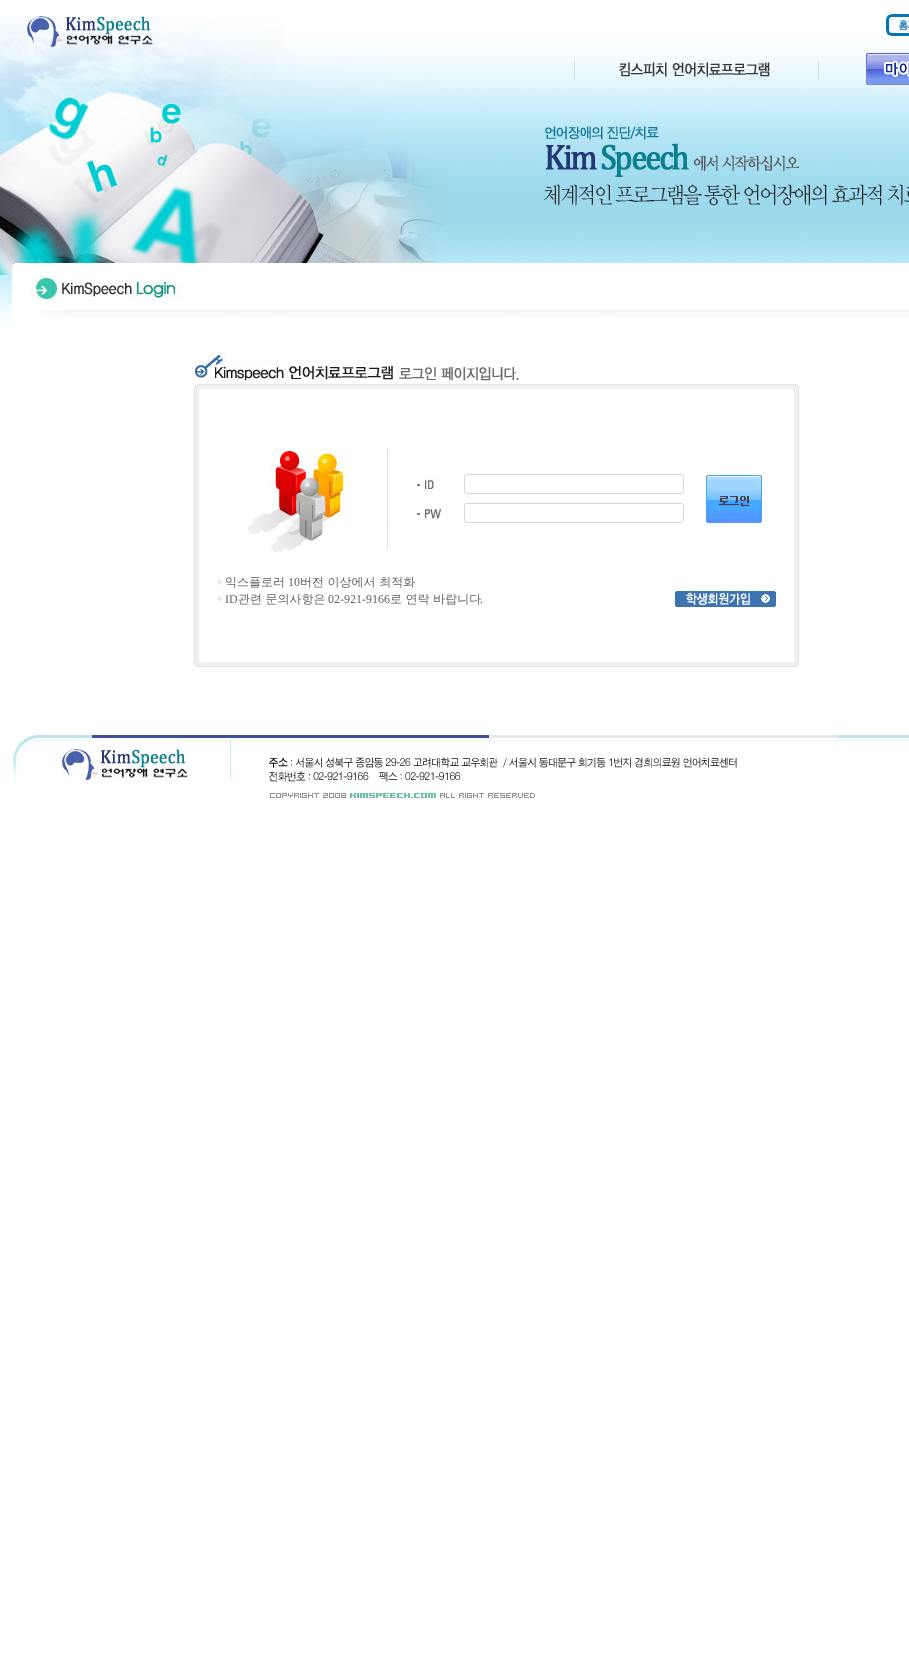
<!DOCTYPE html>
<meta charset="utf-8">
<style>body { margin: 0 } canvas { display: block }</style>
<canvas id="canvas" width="909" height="1656"></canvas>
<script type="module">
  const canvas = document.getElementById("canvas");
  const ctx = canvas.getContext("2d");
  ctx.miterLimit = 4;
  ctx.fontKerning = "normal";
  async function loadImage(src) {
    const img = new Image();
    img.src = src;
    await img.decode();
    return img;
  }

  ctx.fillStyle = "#ffffff";
  ctx.fillRect(0, 0, 909, 1656);
  ctx.drawImage(await loadImage("img1.png"), 283, 39, 626, 10);
  ctx.drawImage(await loadImage("img2.png"), 0, 16, 283, 33);
  ctx.fillStyle = "#fafeff";
  ctx.fillRect(283, 36, 597, 3);
  ctx.drawImage(await loadImage("img3.png"), 886, 14, 23, 22);
  ctx.drawImage(await loadImage("img4.png"), 0, 49, 909, 40);
  ctx.drawImage(await loadImage("img5.png"), 0, 89, 909, 186);
  ctx.drawImage(await loadImage("img6.png"), 0, 275, 12, 52);
  ctx.drawImage(await loadImage("img7.png"), 30, 275, 152, 27);
  ctx.drawImage(await loadImage("img8.png"), 41, 310, 868, 8);
  ctx.drawImage(await loadImage("img9.png"), 194, 352, 605, 47);
  ctx.drawImage(await loadImage("img10.png"), 194, 399, 605, 250);
  ctx.drawImage(await loadImage("img11.png"), 248, 448, 140, 104);
  ctx.drawImage(await loadImage("img12.png"), 417, 476, 21, 13);
  ctx.beginPath();
  ctx.roundRect(464.5, 474.5, 219, 19, 2.5);
  ctx.strokeStyle = "#d7d7d7";
  ctx.stroke();
  ctx.drawImage(await loadImage("img13.png"), 706, 475, 56, 48);
  ctx.drawImage(await loadImage("img14.png"), 417, 507, 28, 12);
  ctx.beginPath();
  ctx.roundRect(464.5, 503.5, 219, 19, 2.5);
  ctx.stroke();
  ctx.font = "12px Liberation Serif";
  ctx.fillStyle = "#cdcdcd";
  ctx.fillText("+", 216, 586);
  ctx.font = "500 12px WenQuanYi Zen Hei";
  ctx.fillStyle = "#636363";
  ctx.fillText("익스플로러", 225, 586);
  ctx.font = "12px Liberation Serif";
  ctx.fillText("10", 288, 586);
  ctx.font = "500 12px WenQuanYi Zen Hei";
  ctx.fillText("버전 이상에서 최적화", 300, 586);
  ctx.font = "12px Liberation Serif";
  ctx.fillStyle = "#cdcdcd";
  ctx.fillText("+", 216, 603);
  ctx.fillStyle = "#636363";
  ctx.fillText("ID", 225, 603);
  ctx.font = "500 12px WenQuanYi Zen Hei";
  ctx.fillText("관련 문의사항은", 238, 603);
  ctx.font = "12px Liberation Serif";
  ctx.fillText("02-921-9166", 328, 603);
  ctx.font = "500 12px WenQuanYi Zen Hei";
  ctx.fillText("로 연락 바랍니다", 390, 603);
  ctx.font = "12px Liberation Serif";
  ctx.fillText(".", 480, 603);
  ctx.drawImage(await loadImage("img15.png"), 675, 591, 101, 16);
  ctx.drawImage(await loadImage("img16.png"), 194, 649, 605, 18);
  ctx.drawImage(await loadImage("img17.png"), 13, 735, 896, 64);
</script>
